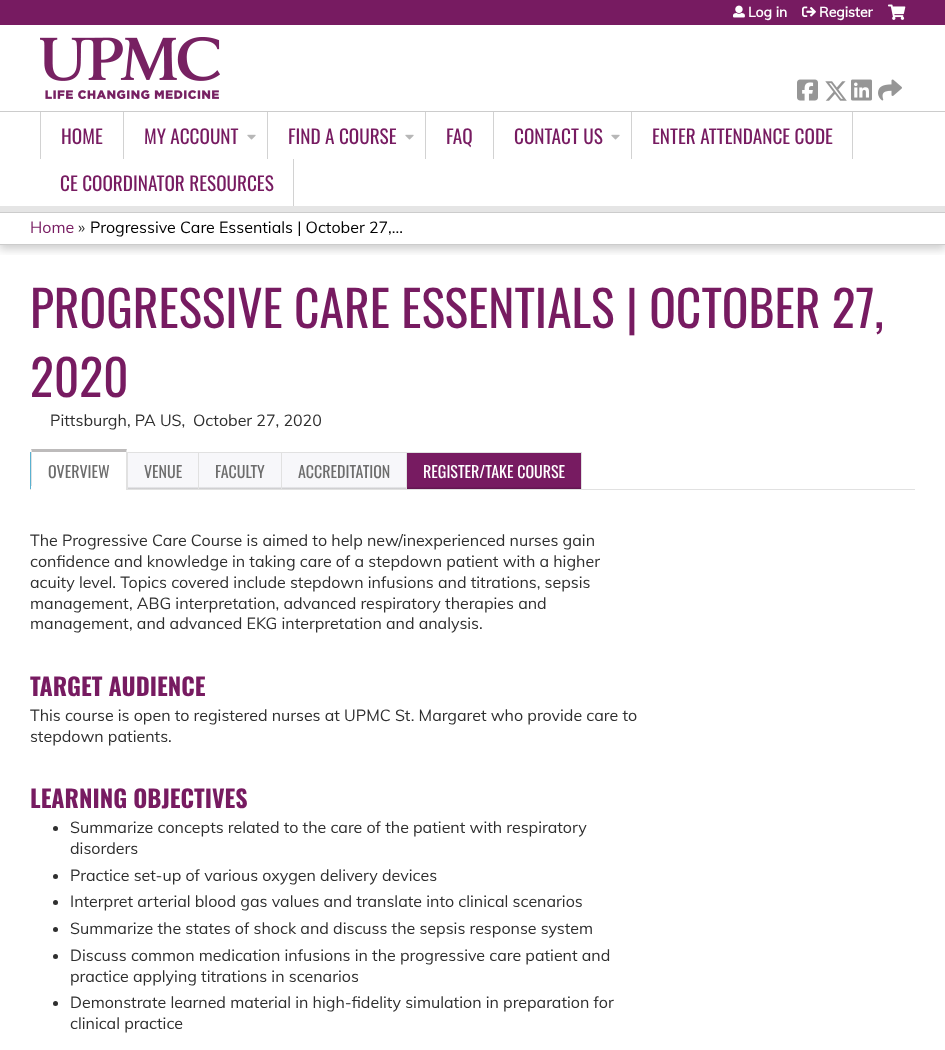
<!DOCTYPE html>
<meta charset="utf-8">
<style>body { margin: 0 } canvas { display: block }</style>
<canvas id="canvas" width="945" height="1050"></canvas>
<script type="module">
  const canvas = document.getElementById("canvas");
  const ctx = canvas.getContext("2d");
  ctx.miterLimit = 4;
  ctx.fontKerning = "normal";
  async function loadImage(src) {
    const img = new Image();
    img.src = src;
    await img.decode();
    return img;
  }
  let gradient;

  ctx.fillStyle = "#ffffff";
  ctx.fillRect(0, 0, 945, 1050);
  ctx.fillStyle = "#771b61";
  ctx.fillRect(0, 0, 945, 25);
  ctx.drawImage(await loadImage("img1.png"), 733, 5, 12, 13);
  ctx.font = "bold 14px Muli";
  ctx.fillStyle = "#ffffff";
  ctx.fillText("Log in", 748, 17);
  ctx.drawImage(await loadImage("img2.png"), 802, 6, 14, 11);
  ctx.fillText("Register", 819, 17);
  ctx.drawImage(await loadImage("img3.png"), 888, 4, 18, 16);
  ctx.drawImage(await loadImage("img4.png"), 797, 79, 21, 22);
  ctx.drawImage(await loadImage("img5.png"), 825, 81, 22, 20);
  ctx.drawImage(await loadImage("img6.png"), 851, 79, 21, 22);
  ctx.drawImage(await loadImage("img7.png"), 878, 79, 24, 22);
  ctx.drawImage(await loadImage("img8.png"), 40, 37, 180, 62);
  ctx.fillStyle = "#cccccc";
  ctx.fillRect(0, 111, 945, 1);
  ctx.save();
  ctx.beginPath();
  ctx.rect(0, 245, 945, 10);
  ctx.clip();
  ctx.fillStyle = "rgba(0, 0, 0, 0.2)";
  ctx.filter = "blur(5px)";
  ctx.beginPath();
  ctx.rect(-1, 214, 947, 35);
  ctx.fill();
  ctx.filter = "none";
  ctx.restore();
  ctx.fillStyle = "#e5e5e5";
  ctx.fillRect(0, 206, 945, 6);
  ctx.fillStyle = "#d2d2d2";
  ctx.fillRect(123, 112, 1, 47);
  ctx.fillRect(40, 112, 1, 47);
  ctx.font = "19.25px Oswald";
  ctx.fillStyle = "#771b61";
  ctx.fillText("HOME", 61, 144);
  ctx.fillStyle = "#d2d2d2";
  ctx.fillRect(267, 112, 1, 47);
  ctx.fillStyle = "#771b61";
  ctx.fillText("MY ACCOUNT", 144, 144);
  ctx.drawImage(await loadImage("img9.png"), 247, 134, 9, 6);
  ctx.fillStyle = "#d2d2d2";
  ctx.fillRect(425, 112, 1, 47);
  ctx.fillStyle = "#771b61";
  ctx.fillText("FIND A COURSE", 288, 144);
  ctx.drawImage(await loadImage("img9.png"), 405, 134, 9, 6);
  ctx.fillStyle = "#d2d2d2";
  ctx.fillRect(493, 112, 1, 47);
  ctx.fillStyle = "#771b61";
  ctx.fillText("FAQ", 446, 144);
  ctx.fillStyle = "#d2d2d2";
  ctx.fillRect(631, 112, 1, 47);
  ctx.fillStyle = "#771b61";
  ctx.fillText("CONTACT US", 514, 144);
  ctx.drawImage(await loadImage("img9.png"), 611, 134, 9, 6);
  ctx.fillStyle = "#d2d2d2";
  ctx.fillRect(852, 112, 1, 47);
  ctx.fillStyle = "#771b61";
  ctx.fillText("ENTER ATTENDANCE CODE", 652, 144);
  ctx.fillStyle = "#d2d2d2";
  ctx.fillRect(293, 159, 1, 47);
  ctx.fillStyle = "#771b61";
  ctx.fillText("CE COORDINATOR RESOURCES", 60, 191);
  ctx.fillStyle = "#cccccc";
  ctx.fillRect(0, 212, 945, 1);
  ctx.fillRect(0, 244, 945, 1);
  ctx.font = "16px Muli";
  ctx.fillStyle = "#771b61";
  ctx.fillText("Home", 30, 233);
  ctx.fillStyle = "#2f2f2f";
  ctx.fillText("»", 78, 233);
  ctx.fillStyle = "#000000";
  ctx.fillText("Progressive Care Essentials | October 27,...", 90, 233);
  ctx.font = "49.6px Oswald";
  ctx.fillStyle = "#771b61";
  ctx.fillText("PROGRESSIVE CARE ESSENTIALS | OCTOBER 27,", 30, 328);
  ctx.fillText("2020", 30, 397);
  ctx.font = "16px Muli";
  ctx.fillStyle = "#2f2f2f";
  ctx.fillText("Pittsburgh, PA US,", 50, 426);
  ctx.fillText("October 27, 2020", 193, 426);
  ctx.fillStyle = "#e1e1e1";
  ctx.fillRect(30, 489, 885, 1);
  ctx.fillStyle = "#5ab1d0";
  ctx.fillRect(30, 452, 1, 37);
  ctx.fillStyle = "#bdbbbb";
  ctx.beginPath();
  ctx.moveTo(31, 449);
  ctx.lineTo(127, 449);
  ctx.lineTo(126, 452);
  ctx.lineTo(32, 452);
  ctx.closePath();
  ctx.fill();
  ctx.fillStyle = "#e1e1e1";
  ctx.beginPath();
  ctx.moveTo(127, 449);
  ctx.lineTo(127, 489);
  ctx.lineTo(126, 489);
  ctx.lineTo(126, 452);
  ctx.closePath();
  ctx.fill();
  ctx.beginPath();
  ctx.moveTo(31, 489);
  ctx.lineTo(31, 449);
  ctx.lineTo(32, 452);
  ctx.lineTo(32, 489);
  ctx.closePath();
  ctx.fill();
  ctx.font = "16px Oswald";
  ctx.fillStyle = "#6d6d6d";
  ctx.fillText("OVERVIEW", 48, 478);
  ctx.fillStyle = "#ffffff";
  ctx.fillRect(31, 486, 95, 4);
  gradient = ctx.createLinearGradient(163, 489, 163, 453);
  gradient.addColorStop(0, "#c6c6c8");
  gradient.addColorStop(0.07, "#f7f7fa");
  ctx.fillStyle = gradient;
  ctx.fillRect(128, 453, 70, 36);
  ctx.fillStyle = "#e1e1e1";
  ctx.fillRect(127, 452, 72, 1);
  ctx.fillRect(198, 452, 1, 37);
  ctx.fillRect(127, 452, 1, 37);
  ctx.fillStyle = "#6d6d6d";
  ctx.fillText("VENUE", 144, 478);
  gradient = ctx.createLinearGradient(240, 489, 240, 453);
  gradient.addColorStop(0, "#c6c6c8");
  gradient.addColorStop(0.07, "#f7f7fa");
  ctx.fillStyle = gradient;
  ctx.fillRect(199, 453, 82, 36);
  ctx.fillStyle = "#e1e1e1";
  ctx.fillRect(198, 452, 84, 1);
  ctx.fillRect(281, 452, 1, 37);
  ctx.fillStyle = "#6d6d6d";
  ctx.fillText("FACULTY", 215, 478);
  gradient = ctx.createLinearGradient(344, 489, 344, 453);
  gradient.addColorStop(0, "#c6c6c8");
  gradient.addColorStop(0.07, "#f7f7fa");
  ctx.fillStyle = gradient;
  ctx.fillRect(282, 453, 124, 36);
  ctx.fillStyle = "#e1e1e1";
  ctx.fillRect(281, 452, 126, 1);
  ctx.fillRect(406, 452, 1, 37);
  ctx.fillStyle = "#6d6d6d";
  ctx.fillText("ACCREDITATION", 298, 478);
  gradient = ctx.createLinearGradient(494, 489, 494, 453);
  gradient.addColorStop(0, "#5f164e");
  gradient.addColorStop(0.07, "#771b61");
  ctx.fillStyle = gradient;
  ctx.fillRect(407, 453, 174, 36);
  ctx.fillStyle = "#e1e1e1";
  ctx.fillRect(406, 452, 176, 1);
  ctx.fillRect(581, 452, 1, 37);
  ctx.fillStyle = "#ffffff";
  ctx.fillText("REGISTER/TAKE COURSE", 423, 478);
  ctx.font = "16px Muli";
  ctx.fillStyle = "#2f2f2f";
  ctx.fillText("The Progressive Care Course is aimed to help new/inexperienced nurses gain", 30, 546);
  ctx.fillText("confidence and knowledge in taking care of a stepdown patient with a higher", 30, 567);
  ctx.fillText("acuity level. Topics covered include stepdown infusions and titrations, sepsis", 30, 588);
  ctx.fillText("management, ABG interpretation, advanced respiratory therapies and", 30, 609);
  ctx.fillText("management, and advanced EKG interpretation and analysis.", 30, 629);
  ctx.font = "bold 24px Oswald";
  ctx.fillStyle = "#771b61";
  ctx.fillText("TARGET AUDIENCE", 30, 696);
  ctx.font = "16px Muli";
  ctx.fillStyle = "#2f2f2f";
  ctx.fillText("This course is open to registered nurses at UPMC St. Margaret who provide care to", 30, 721);
  ctx.fillText("stepdown patients.", 30, 742);
  ctx.font = "bold 24px Oswald";
  ctx.fillStyle = "#771b61";
  ctx.fillText("LEARNING OBJECTIVES", 30, 808);
  ctx.fillStyle = "#2f2f2f";
  ctx.beginPath();
  ctx.arc(55.5, 828.5, 2.5, 0, Math.PI * 2);
  ctx.fill();
  ctx.font = "16px Muli";
  ctx.fillText("Summarize concepts related to the care of the patient with respiratory", 70, 833);
  ctx.fillText("disorders", 70, 854);
  ctx.beginPath();
  ctx.arc(55.5, 876.5, 2.5, 0, Math.PI * 2);
  ctx.fill();
  ctx.fillText("Practice set-up of various oxygen delivery devices", 70, 881);
  ctx.beginPath();
  ctx.arc(55.5, 902.5, 2.5, 0, Math.PI * 2);
  ctx.fill();
  ctx.fillText("Interpret arterial blood gas values and translate into clinical scenarios", 70, 907);
  ctx.beginPath();
  ctx.arc(55.5, 929.5, 2.5, 0, Math.PI * 2);
  ctx.fill();
  ctx.fillText("Summarize the states of shock and discuss the sepsis response system", 70, 934);
  ctx.beginPath();
  ctx.arc(55.5, 956.5, 2.5, 0, Math.PI * 2);
  ctx.fill();
  ctx.fillText("Discuss common medication infusions in the progressive care patient and", 70, 961);
  ctx.fillText("practice applying titrations in scenarios", 70, 982);
  ctx.beginPath();
  ctx.arc(55.5, 1003.5, 2.5, 0, Math.PI * 2);
  ctx.fill();
  ctx.fillText("Demonstrate learned material in high-fidelity simulation in preparation for", 70, 1008);
  ctx.fillText("clinical practice", 70, 1029);
</script>
